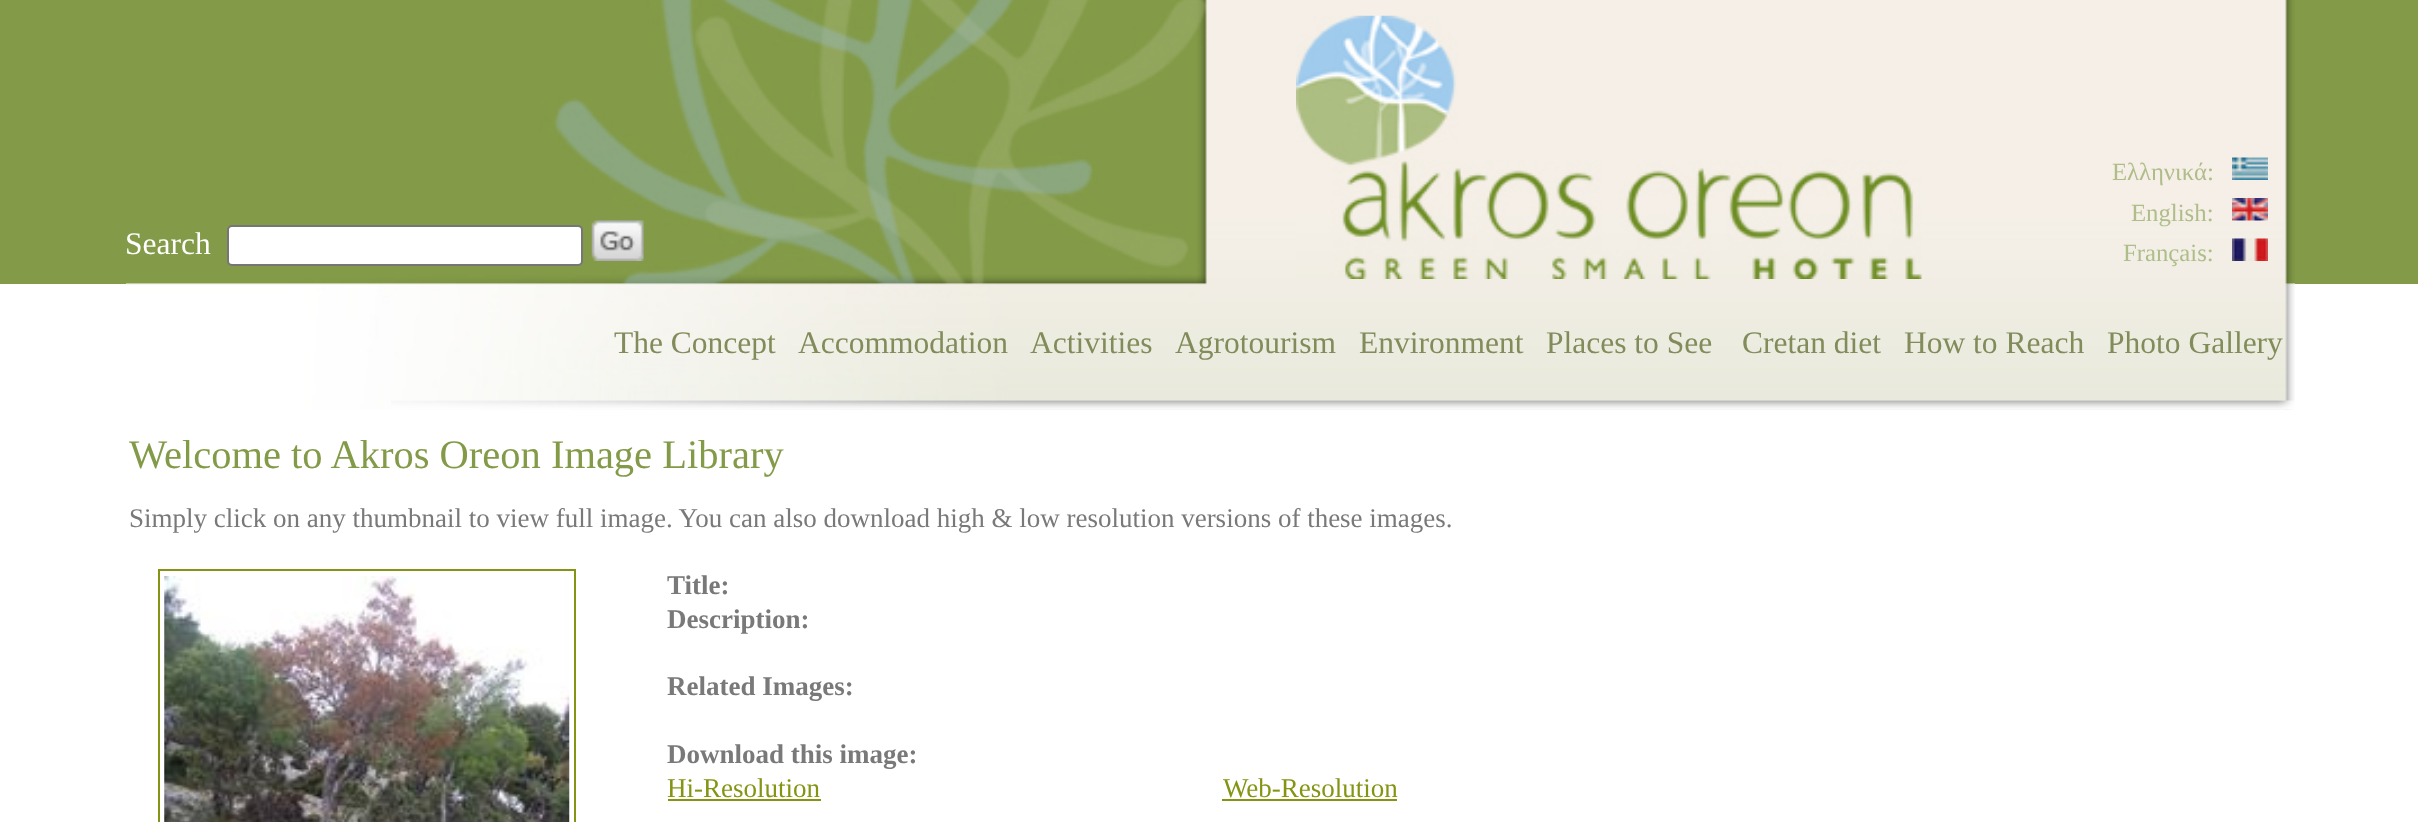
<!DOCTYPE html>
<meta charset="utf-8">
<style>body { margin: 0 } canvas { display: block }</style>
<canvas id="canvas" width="2418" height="822"></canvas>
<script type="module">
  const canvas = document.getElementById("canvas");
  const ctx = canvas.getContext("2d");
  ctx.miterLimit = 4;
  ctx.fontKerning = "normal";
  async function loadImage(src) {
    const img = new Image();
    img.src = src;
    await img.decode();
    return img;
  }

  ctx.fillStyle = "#ffffff";
  ctx.fillRect(0, 0, 2418, 822);
  ctx.fillStyle = "#839a48";
  ctx.fillRect(0, 0, 2418, 284);
  ctx.drawImage(await loadImage("img1.png"), 126, 0, 2169, 410);
  ctx.font = "31.5px Liberation Serif";
  ctx.fillStyle = "#ffffff";
  ctx.fillText("Search", 125, 254);
  ctx.beginPath();
  ctx.roundRect(228, 226, 354, 39, 4);
  ctx.fill();
  ctx.strokeStyle = "#767676";
  ctx.lineWidth = 2;
  ctx.stroke();
  ctx.drawImage(await loadImage("img2.png"), 591, 220, 53, 41);
  ctx.drawImage(await loadImage("img3.png"), 1296, 15, 626, 264);
  ctx.font = "24.75px Liberation Serif";
  ctx.fillStyle = "#aebd89";
  ctx.fillText("Ελληνικά:", 2112, 180);
  ctx.drawImage(await loadImage("img4.png"), 2232, 157, 36, 23);
  ctx.fillText("English:", 2131, 221);
  ctx.drawImage(await loadImage("img5.png"), 2232, 198, 36, 23);
  ctx.fillText("Français:", 2123, 261);
  ctx.drawImage(await loadImage("img6.png"), 2232, 238, 36, 23);
  ctx.drawImage(await loadImage("img7.png"), 391, 400, 1904, 10);
  ctx.font = "31.5px Liberation Serif";
  ctx.fillStyle = "#828b5a";
  ctx.fillText("The Concept", 614, 353);
  ctx.fillText("Accommodation", 798, 353);
  ctx.fillText("Activities", 1030, 353);
  ctx.fillText("Agrotourism", 1175, 353);
  ctx.fillText("Environment", 1359, 353);
  ctx.fillText("Places to See", 1546, 353);
  ctx.fillText("Cretan diet", 1742, 353);
  ctx.fillText("How to Reach", 1904, 353);
  ctx.fillText("Photo Gallery", 2107, 353);
  ctx.font = "40.5px Liberation Serif";
  ctx.fillStyle = "#839b48";
  ctx.fillText("Welcome to Akros Oreon Image Library", 129, 468);
  ctx.font = "27px Liberation Serif";
  ctx.fillStyle = "#797979";
  ctx.fillText("Simply click on any thumbnail to view full image. You can also download high & low resolution versions of these images.", 129, 527);
  ctx.strokeStyle = "#859413";
  ctx.strokeRect(159, 570, 416, 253);
  ctx.drawImage(await loadImage("img8.png"), 164, 576, 406, 246);
  ctx.font = "bold 27px Liberation Serif";
  ctx.fillText("Title:", 667, 594);
  ctx.fillText("Description:", 667, 628);
  ctx.fillText("Related Images:", 667, 695);
  ctx.fillText("Download this image:", 667, 763);
  ctx.font = "27px Liberation Serif";
  ctx.fillStyle = "#859413";
  ctx.fillText("Hi-Resolution", 667, 797);
  ctx.fillRect(668, 799, 153, 2);
  ctx.fillText("Web-Resolution", 1223, 797);
  ctx.fillRect(1222, 799, 175, 2);
</script>
